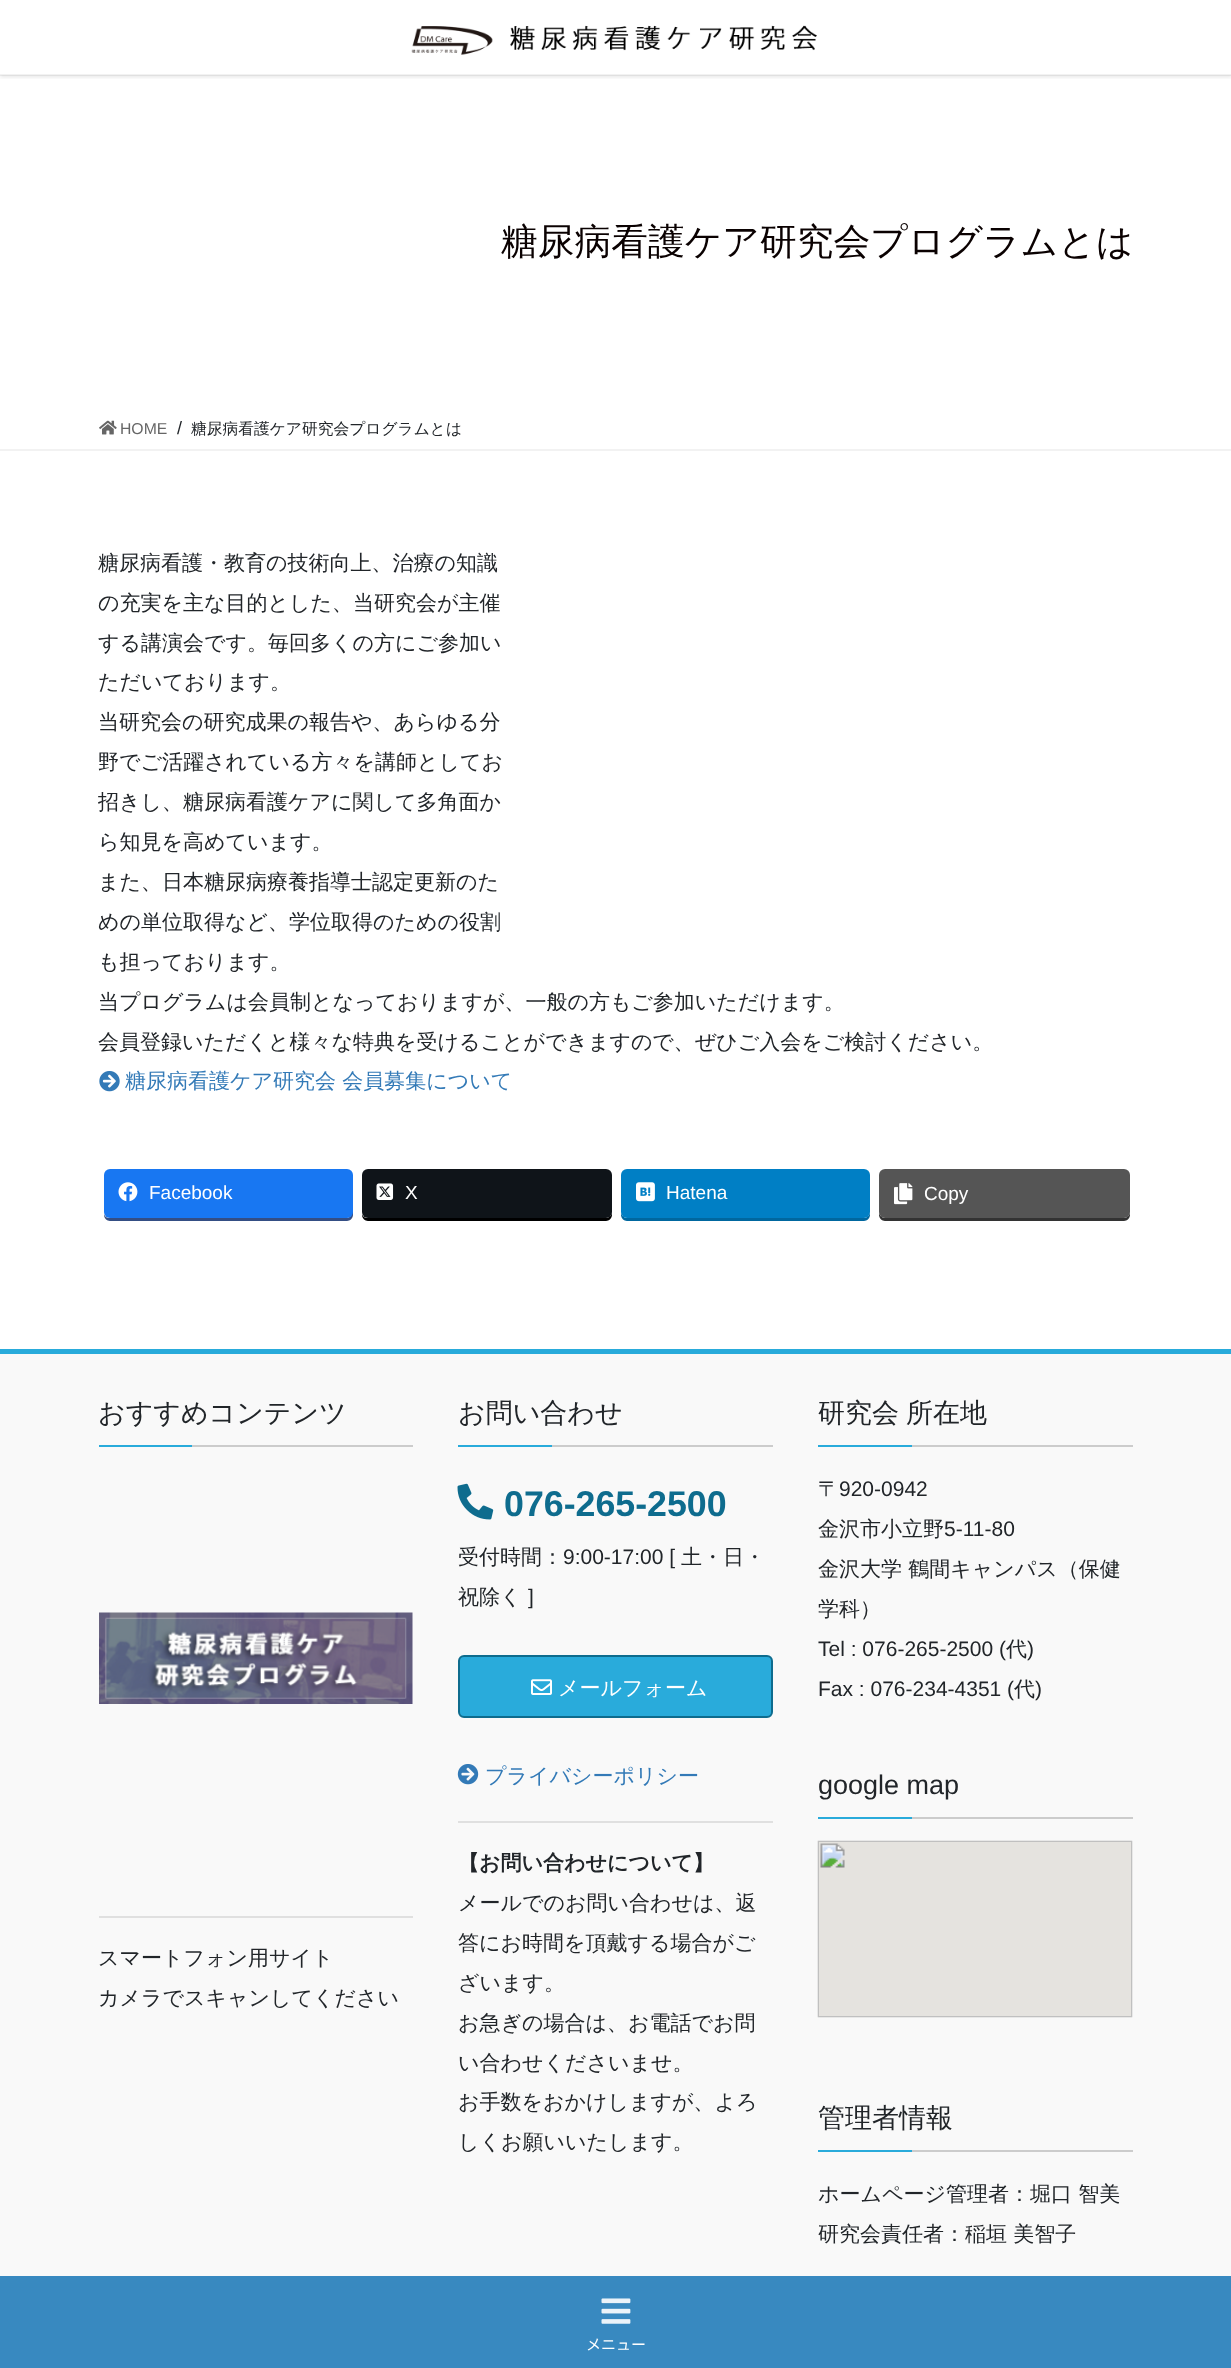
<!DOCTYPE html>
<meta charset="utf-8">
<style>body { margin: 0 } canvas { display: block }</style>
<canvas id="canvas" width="1231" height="2368"></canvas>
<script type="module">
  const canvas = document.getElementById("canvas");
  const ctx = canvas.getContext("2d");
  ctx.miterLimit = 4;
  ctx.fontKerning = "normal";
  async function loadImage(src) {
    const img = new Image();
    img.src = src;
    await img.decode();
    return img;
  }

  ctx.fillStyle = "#ffffff";
  ctx.fillRect(0, 0, 1231, 2368);
  ctx.save();
  ctx.beginPath();
  ctx.rect(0, 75, 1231, 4);
  ctx.clip();
  ctx.fillStyle = "rgba(0, 0, 0, 0.1)";
  ctx.filter = "blur(2px)";
  ctx.beginPath();
  ctx.rect(0, 2, 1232, 75);
  ctx.fill();
  ctx.filter = "none";
  ctx.restore();
  ctx.fillStyle = "rgba(0, 0, 0, 0.05)";
  ctx.fillRect(0, 74, 1231, 2);
  ctx.drawImage(await loadImage("img1.png"), 411, 25, 406, 30);
  ctx.font = "500 36.75px WenQuanYi Zen Hei";
  ctx.fillStyle = "#0a0101";
  ctx.fillText("糖尿病看護ケア研究会プログラムとは", 501, 254);
  ctx.fillStyle = "#f2f2f2";
  ctx.fillRect(0, 449, 1231, 2);
  ctx.drawImage(await loadImage("img2.png"), 99, 420, 18, 15);
  ctx.font = "15.75px Liberation Sans";
  ctx.fillStyle = "#666666";
  ctx.fillText("HOME", 120, 434);
  ctx.font = "18px Liberation Sans";
  ctx.fillStyle = "#212529";
  ctx.fillText("/", 177, 434);
  ctx.font = "500 15.75px WenQuanYi Zen Hei";
  ctx.fillText("糖尿病看護ケア研究会プログラムとは", 191, 434);
  ctx.font = "500 21px WenQuanYi Zen Hei";
  ctx.fillText("糖尿病看護・教育の技術向上、治療の知識", 98, 570);
  ctx.fillText("の充実を主な目的とした、当研究会が主催", 98, 610);
  ctx.fillText("する講演会です。毎回多くの方にご参加い", 98, 650);
  ctx.fillText("ただいております。", 98, 689);
  ctx.fillText("当研究会の研究成果の報告や、あらゆる分", 98, 729);
  ctx.fillText("野でご活躍されている方々を講師としてお", 98, 769);
  ctx.fillText("招きし、糖尿病看護ケアに関して多角面か", 98, 809);
  ctx.fillText("ら知見を高めています。", 98, 849);
  ctx.fillText("また、日本糖尿病療養指導士認定更新のた", 98, 889);
  ctx.fillText("めの単位取得など、学位取得のための役割", 98, 929);
  ctx.fillText("も担っております。", 98, 969);
  ctx.fillText("当プログラムは会員制となっておりますが、一般の方もご参加いただけます。", 98, 1009);
  ctx.fillText("会員登録いただくと様々な特典を受けることができますので、ぜひご入会をご検討ください。", 98, 1049);
  ctx.drawImage(await loadImage("img3.png"), 99, 1071, 21, 21);
  ctx.fillStyle = "#337ab7";
  ctx.fillText("糖尿病看護ケア研究会 会員募集について", 125, 1088);
  ctx.fillStyle = "#344e84";
  ctx.beginPath();
  ctx.moveTo(104, 1214);
  ctx.lineTo(104, 1215);
  ctx.bezierCurveTo(104, 1218, 107, 1221, 110, 1221);
  ctx.lineTo(347, 1221);
  ctx.bezierCurveTo(350, 1221, 353, 1218, 353, 1215);
  ctx.lineTo(353, 1178);
  ctx.lineTo(352, 1176);
  ctx.lineTo(352, 1212);
  ctx.bezierCurveTo(352, 1215, 350, 1218, 346, 1218);
  ctx.lineTo(110, 1218);
  ctx.bezierCurveTo(107, 1218, 105, 1217, 104, 1214);
  ctx.closePath();
  ctx.fill();
  ctx.fillStyle = "#1877f2";
  ctx.beginPath();
  ctx.roundRect(104, 1169, 249, 49, 6);
  ctx.fill();
  ctx.drawImage(await loadImage("img4.png"), 118, 1182, 20, 20);
  ctx.font = "19px Liberation Sans";
  ctx.fillStyle = "#ffffff";
  ctx.fillText("Facebook", 149, 1199);
  ctx.fillStyle = "#000000";
  ctx.beginPath();
  ctx.moveTo(362, 1214);
  ctx.lineTo(362, 1215);
  ctx.bezierCurveTo(362, 1218, 365, 1221, 368, 1221);
  ctx.lineTo(606, 1221);
  ctx.bezierCurveTo(609, 1221, 612, 1218, 612, 1215);
  ctx.lineTo(612, 1212);
  ctx.bezierCurveTo(612, 1215, 609, 1218, 606, 1218);
  ctx.lineTo(368, 1218);
  ctx.bezierCurveTo(365, 1218, 363, 1217, 362, 1214);
  ctx.closePath();
  ctx.fill();
  ctx.fillStyle = "#0f1419";
  ctx.beginPath();
  ctx.roundRect(362, 1169, 250, 49, 6);
  ctx.fill();
  ctx.drawImage(await loadImage("img5.png"), 376, 1183, 18, 17);
  ctx.fillStyle = "#ffffff";
  ctx.fillText("X", 405, 1199);
  ctx.fillStyle = "#00679f";
  ctx.beginPath();
  ctx.moveTo(621, 1212);
  ctx.lineTo(621, 1215);
  ctx.bezierCurveTo(621, 1218, 624, 1221, 627, 1221);
  ctx.lineTo(864, 1221);
  ctx.bezierCurveTo(867, 1221, 870, 1218, 870, 1215);
  ctx.lineTo(870, 1212);
  ctx.bezierCurveTo(870, 1215, 867, 1218, 864, 1218);
  ctx.lineTo(627, 1218);
  ctx.bezierCurveTo(624, 1218, 621, 1215, 621, 1212);
  ctx.closePath();
  ctx.fill();
  ctx.fillStyle = "#007fc5";
  ctx.beginPath();
  ctx.roundRect(621, 1169, 249, 49, 6);
  ctx.fill();
  ctx.drawImage(await loadImage("img6.png"), 636, 1182, 19, 20);
  ctx.fillStyle = "#ffffff";
  ctx.fillText("Hatena", 666, 1199);
  ctx.fillStyle = "#333333";
  ctx.beginPath();
  ctx.moveTo(879, 1212);
  ctx.lineTo(879, 1215);
  ctx.bezierCurveTo(879, 1218, 882, 1221, 885, 1221);
  ctx.lineTo(1124, 1221);
  ctx.bezierCurveTo(1127, 1221, 1130, 1218, 1130, 1215);
  ctx.lineTo(1130, 1178);
  ctx.lineTo(1130, 1176);
  ctx.lineTo(1130, 1212);
  ctx.bezierCurveTo(1130, 1215, 1127, 1218, 1124, 1218);
  ctx.lineTo(885, 1218);
  ctx.bezierCurveTo(882, 1218, 879, 1215, 879, 1212);
  ctx.closePath();
  ctx.fill();
  ctx.fillStyle = "#555555";
  ctx.beginPath();
  ctx.roundRect(879, 1169, 251, 49, 6);
  ctx.fill();
  ctx.drawImage(await loadImage("img7.png"), 894, 1183, 19, 22);
  ctx.fillStyle = "#ffffff";
  ctx.fillText("Copy", 924, 1200);
  ctx.fillStyle = "#f9f9f9";
  ctx.fillRect(0, 1354, 1231, 922);
  ctx.fillStyle = "#3889c0";
  ctx.fillRect(0, 2276, 1231, 92);
  ctx.fillStyle = "#29abdb";
  ctx.fillRect(0, 1349, 1231, 5);
  ctx.fillStyle = "#cccccc";
  ctx.fillRect(192, 1445, 221, 2);
  ctx.font = "500 27px WenQuanYi Zen Hei";
  ctx.fillStyle = "#212529";
  ctx.fillText("おすすめコンテンツ", 98, 1422);
  ctx.fillStyle = "#29abdb";
  ctx.fillRect(99, 1445, 93, 2);
  ctx.drawImage(await loadImage("img8.png"), 99, 1612, 314, 92);
  ctx.fillStyle = "#e0e0e0";
  ctx.fillRect(99, 1916, 314, 2);
  ctx.font = "500 21px WenQuanYi Zen Hei";
  ctx.fillStyle = "#212529";
  ctx.fillText("スマートフォン用サイト", 98, 1965);
  ctx.fillText("カメラでスキャンしてください", 98, 2005);
  ctx.fillStyle = "#cccccc";
  ctx.fillRect(552, 1445, 221, 2);
  ctx.font = "500 27px WenQuanYi Zen Hei";
  ctx.fillStyle = "#212529";
  ctx.fillText("お問い合わせ", 458, 1422);
  ctx.fillStyle = "#29abdb";
  ctx.fillRect(458, 1445, 94, 2);
  ctx.drawImage(await loadImage("img9.png"), 457, 1483, 37, 37);
  ctx.font = "bold 35.75px Liberation Sans";
  ctx.fillStyle = "#0e6c8e";
  ctx.fillText("076-265-2500", 504, 1516);
  ctx.font = "500 21px WenQuanYi Zen Hei";
  ctx.fillStyle = "#212529";
  ctx.fillText("受付時間：", 458, 1564);
  ctx.font = "21px Liberation Sans";
  ctx.fillText("9:00-17:00 [", 563, 1564);
  ctx.font = "500 21px WenQuanYi Zen Hei";
  ctx.fillText("土・日・", 681, 1564);
  ctx.fillText("祝除く", 458, 1604);
  ctx.font = "21px Liberation Sans";
  ctx.fillText("]", 528, 1604);
  ctx.fillStyle = "#29abdb";
  ctx.beginPath();
  ctx.roundRect(459, 1656, 313, 61, 5);
  ctx.fill();
  ctx.strokeStyle = "#0e6c8e";
  ctx.lineWidth = 2;
  ctx.stroke();
  ctx.drawImage(await loadImage("img10.png"), 531, 1679, 21, 16);
  ctx.font = "500 21px WenQuanYi Zen Hei";
  ctx.fillStyle = "#ffffff";
  ctx.fillText("メールフォーム", 558, 1695);
  ctx.drawImage(await loadImage("img11.png"), 457, 1764, 22, 21);
  ctx.fillStyle = "#337ab7";
  ctx.fillText("プライバシーポリシー", 485, 1783);
  ctx.fillStyle = "#e0e0e0";
  ctx.fillRect(458, 1821, 315, 2);
  ctx.font = "bold 21px WenQuanYi Zen Hei";
  ctx.fillStyle = "#212529";
  ctx.fillText("【お問い合わせについて】", 458, 1870);
  ctx.font = "500 21px WenQuanYi Zen Hei";
  ctx.fillText("メールでのお問い合わせは、返", 458, 1910);
  ctx.fillText("答にお時間を頂戴する場合がご", 458, 1950);
  ctx.fillText("ざいます。", 458, 1990);
  ctx.fillText("お急ぎの場合は、お電話でお問", 458, 2030);
  ctx.fillText("い合わせくださいませ。", 458, 2070);
  ctx.fillText("お手数をおかけしますが、よろ", 458, 2109);
  ctx.fillText("しくお願いいたします。", 458, 2149);
  ctx.fillStyle = "#cccccc";
  ctx.fillRect(912, 1445, 221, 2);
  ctx.wordSpacing = "-1px";
  ctx.font = "500 27px WenQuanYi Zen Hei";
  ctx.fillStyle = "#212529";
  ctx.fillText("研究会 所在地", 818, 1422);
  ctx.fillStyle = "#29abdb";
  ctx.fillRect(818, 1445, 94, 2);
  ctx.wordSpacing = "0px";
  ctx.font = "500 21px WenQuanYi Zen Hei";
  ctx.fillStyle = "#212529";
  ctx.fillText("〒", 818, 1496);
  ctx.font = "21px Liberation Sans";
  ctx.fillText("920-0942", 839, 1496);
  ctx.font = "500 21px WenQuanYi Zen Hei";
  ctx.fillText("金沢市小立野", 818, 1536);
  ctx.font = "21px Liberation Sans";
  ctx.fillText("5-11-80", 944, 1536);
  ctx.font = "500 21px WenQuanYi Zen Hei";
  ctx.fillText("金沢大学 鶴間キャンパス（保健", 818, 1576);
  ctx.fillText("学科）", 818, 1616);
  ctx.font = "21px Liberation Sans";
  ctx.fillText("Tel : 076-265-2500 (", 818, 1656);
  ctx.font = "500 21px WenQuanYi Zen Hei";
  ctx.fillText("代", 1006, 1656);
  ctx.font = "21px Liberation Sans";
  ctx.fillText(")", 1027, 1656);
  ctx.fillText("Fax : 076-234-4351 (", 818, 1696);
  ctx.font = "500 21px WenQuanYi Zen Hei";
  ctx.fillText("代", 1014, 1696);
  ctx.font = "21px Liberation Sans";
  ctx.fillText(")", 1035, 1696);
  ctx.fillStyle = "#cccccc";
  ctx.fillRect(912, 1817, 221, 2);
  ctx.font = "27px Liberation Sans";
  ctx.fillStyle = "#212529";
  ctx.fillText("google map", 818, 1794);
  ctx.fillStyle = "#29abdb";
  ctx.fillRect(818, 1817, 94, 2);
  ctx.drawImage(await loadImage("img12.png"), 817, 1840, 316, 178);
  ctx.fillStyle = "#cccccc";
  ctx.fillRect(912, 2150, 221, 2);
  ctx.font = "500 27px WenQuanYi Zen Hei";
  ctx.fillStyle = "#212529";
  ctx.fillText("管理者情報", 818, 2127);
  ctx.fillStyle = "#29abdb";
  ctx.fillRect(818, 2150, 94, 2);
  ctx.font = "500 21px WenQuanYi Zen Hei";
  ctx.fillStyle = "#212529";
  ctx.fillText("ホームページ管理者：堀口 智美", 818, 2201);
  ctx.fillText("研究会責任者：稲垣 美智子", 818, 2241);
  ctx.drawImage(await loadImage("img13.png"), 601, 2298, 30, 26);
  ctx.font = "100 15px Noto Sans TC";
  ctx.fillStyle = "#ffffff";
  ctx.fillText("メニュー", 586, 2350);
</script>
